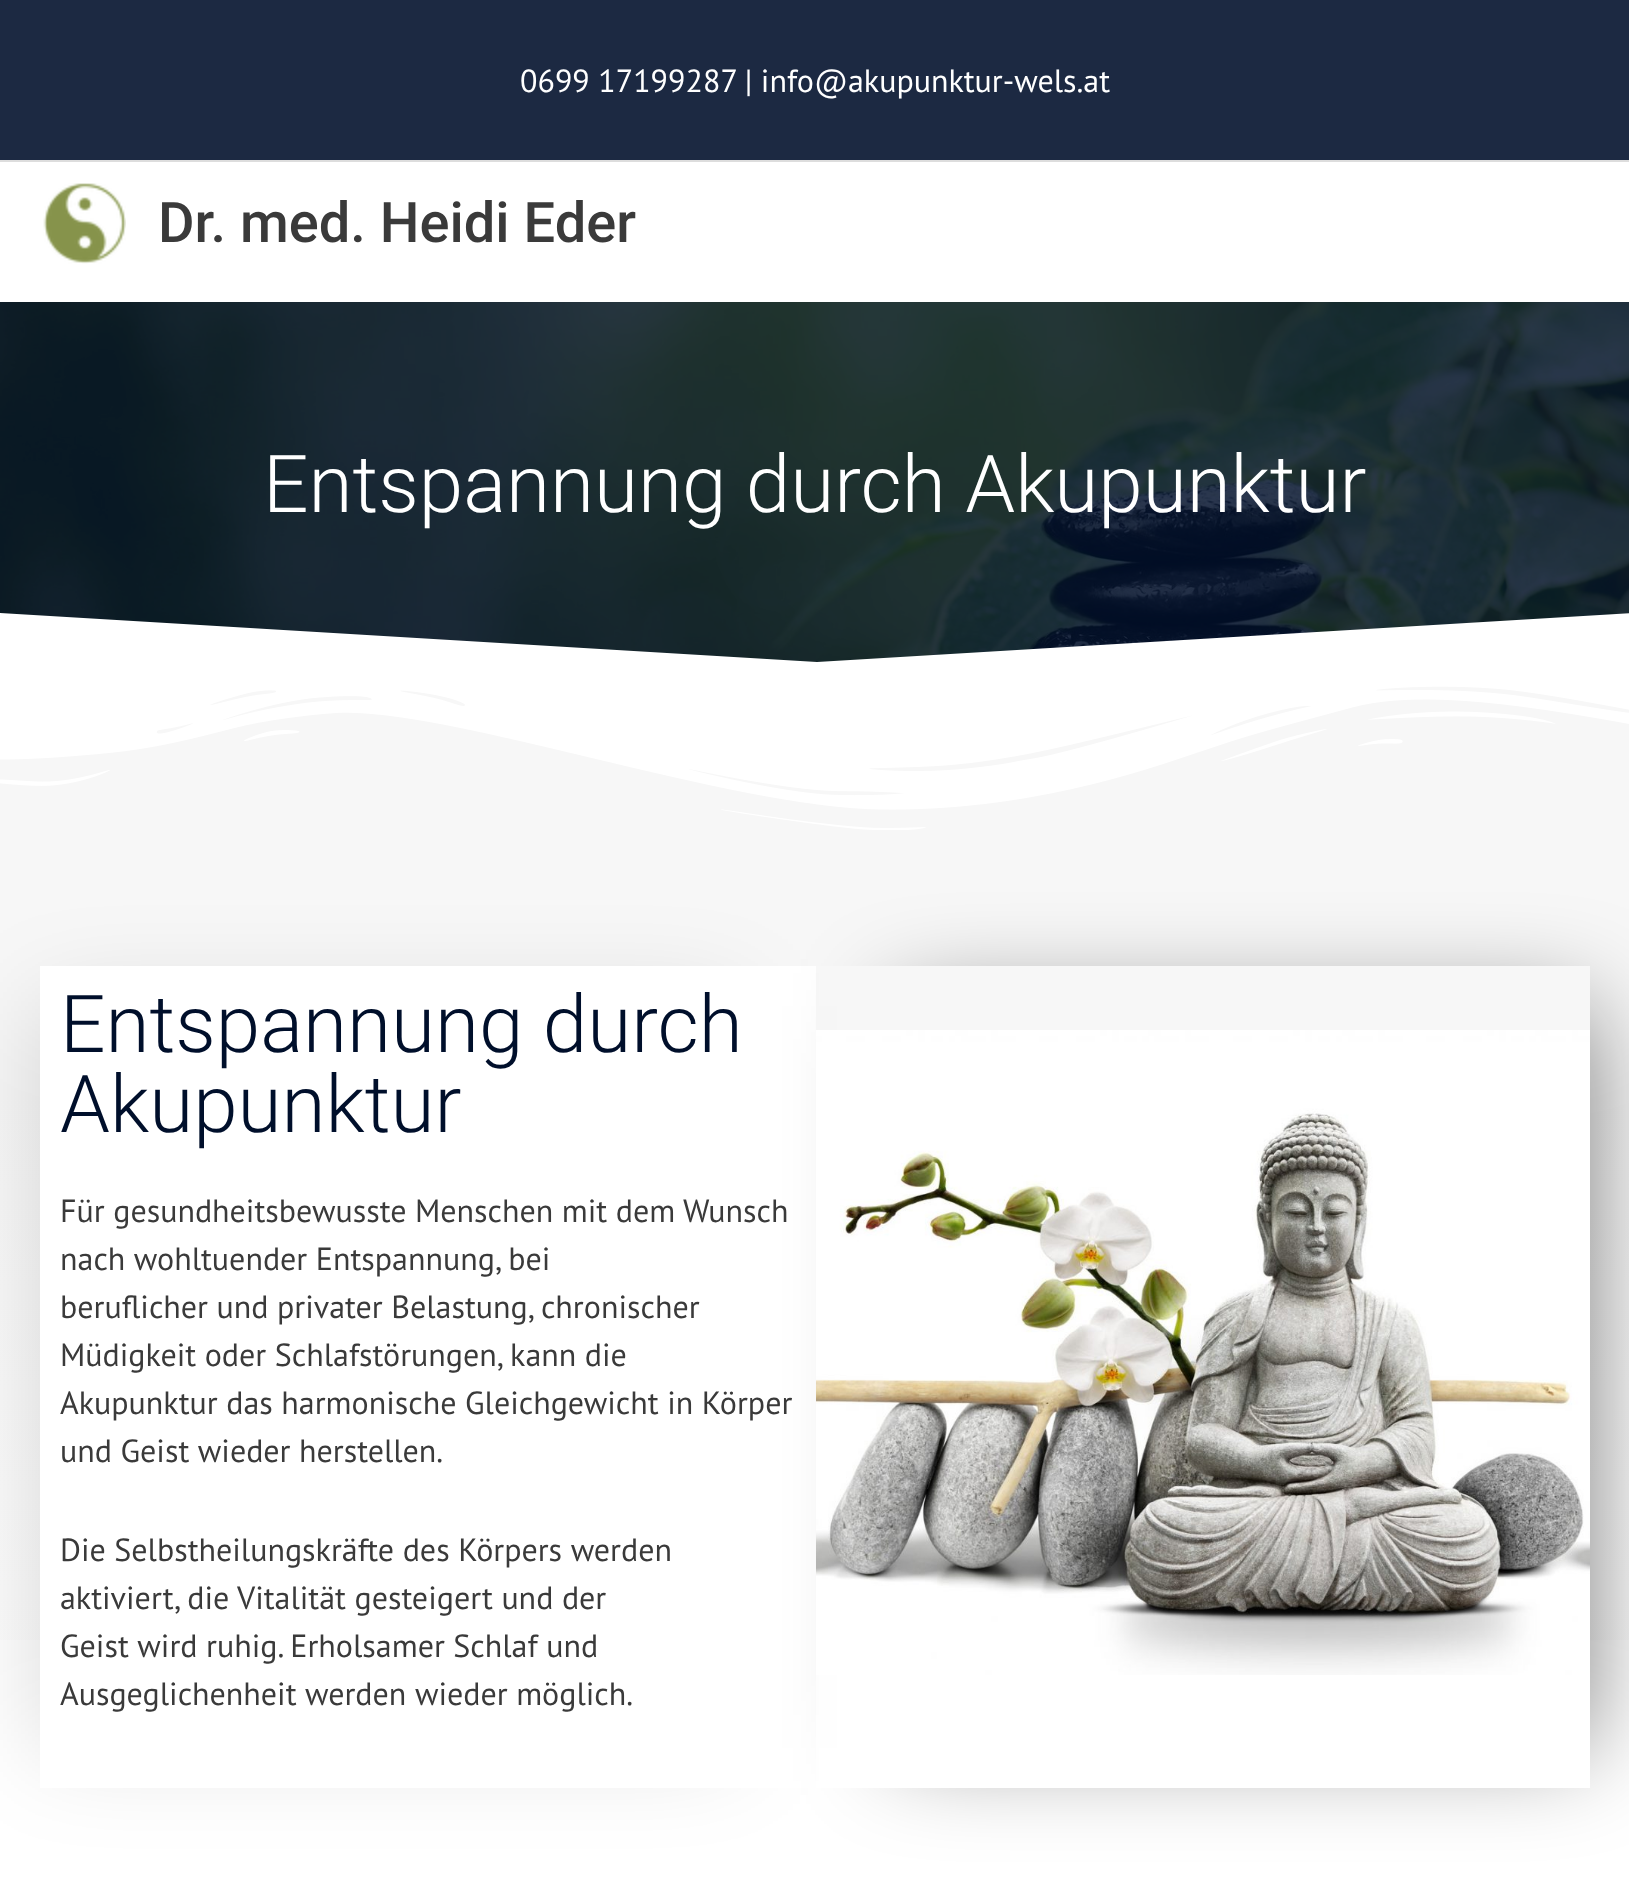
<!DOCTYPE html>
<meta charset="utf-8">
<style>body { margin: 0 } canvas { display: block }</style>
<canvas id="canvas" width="1629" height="1882"></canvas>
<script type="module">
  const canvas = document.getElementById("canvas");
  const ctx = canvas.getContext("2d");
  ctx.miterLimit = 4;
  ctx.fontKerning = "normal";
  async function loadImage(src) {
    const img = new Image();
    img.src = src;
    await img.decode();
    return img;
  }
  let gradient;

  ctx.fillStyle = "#ffffff";
  ctx.fillRect(0, 0, 1629, 1882);
  ctx.fillStyle = "#1c2942";
  ctx.fillRect(0, 0, 1629, 160);
  ctx.fillStyle = "#dddddd";
  ctx.fillRect(0, 160, 1629, 2);
  ctx.font = "32px PT Sans";
  ctx.fillStyle = "#ffffff";
  ctx.fillText("0699 17199287 | info@akupunktur-wels.at", 520, 92);
  ctx.drawImage(await loadImage("img1.png"), 43, 183, 83, 81);
  ctx.font = "500 56px Roboto";
  ctx.fillStyle = "#3a3a3a";
  ctx.fillText("Dr. med. Heidi Eder", 158, 242);
  ctx.drawImage(await loadImage("img2.png"), 0, 302, 1629, 360);
  ctx.font = "300 80px Roboto";
  ctx.fillStyle = "#ffffff";
  ctx.fillText("Entspannung durch Akupunktur", 263, 512);
  ctx.beginPath();
  ctx.moveTo(817, 662);
  ctx.lineTo(-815, 564);
  ctx.lineTo(-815, 668);
  ctx.lineTo(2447, 668);
  ctx.lineTo(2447, 564);
  ctx.closePath();
  ctx.fill();
  gradient = ctx.createLinearGradient(815, 666, 815, 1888);
  gradient.addColorStop(0.35, "#f7f7f7");
  gradient.addColorStop(1, "#ffffff");
  ctx.fillStyle = gradient;
  ctx.fillRect(0, 686, 1629, 954);
  ctx.drawImage(await loadImage("img3.png"), 0, 666, 1629, 164);
  ctx.fillStyle = "rgba(0, 0, 0, 0.15)";
  ctx.filter = "blur(50px)";
  ctx.beginPath();
  ctx.rect(40, 1006, 696, 742);
  ctx.fill();
  ctx.filter = "none";
  ctx.fillStyle = "#ffffff";
  ctx.fillRect(40, 966, 776, 822);
  ctx.fillStyle = "#000f2b";
  ctx.fillText("Entspannung durch", 60, 1052);
  ctx.fillText("Akupunktur", 60, 1132);
  ctx.font = "32px PT Sans";
  ctx.fillStyle = "#3a3a3a";
  ctx.fillText("Für gesundheitsbewusste Menschen mit dem Wunsch", 60, 1222);
  ctx.fillText("nach wohltuender Entspannung, bei", 60, 1270);
  ctx.fillText("beruflicher und privater Belastung, chronischer", 60, 1318);
  ctx.fillText("Müdigkeit oder Schlafstörungen, kann die", 60, 1366);
  ctx.fillText("Akupunktur das harmonische Gleichgewicht in Körper", 60, 1414);
  ctx.fillText("und Geist wieder herstellen.", 60, 1462);
  ctx.fillText("Die Selbstheilungskräfte des Körpers werden", 60, 1561);
  ctx.fillText("aktiviert, die Vitalität gesteigert und der", 60, 1609);
  ctx.fillText("Geist wird ruhig. Erholsamer Schlaf und", 60, 1657);
  ctx.fillText("Ausgeglichenheit werden wieder möglich.", 60, 1705);
  ctx.save();
  ctx.beginPath();
  ctx.moveTo(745, 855);
  ctx.lineTo(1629, 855);
  ctx.lineTo(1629, 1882);
  ctx.lineTo(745, 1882);
  ctx.closePath();
  ctx.moveTo(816, 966);
  ctx.lineTo(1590, 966);
  ctx.lineTo(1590, 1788);
  ctx.lineTo(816, 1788);
  ctx.closePath();
  ctx.clip("evenodd");
  ctx.fillStyle = "rgba(0, 0, 0, 0.5)";
  ctx.filter = "blur(50px)";
  ctx.beginPath();
  ctx.rect(896, 1006, 694, 742);
  ctx.fill();
  ctx.filter = "none";
  ctx.restore();
  ctx.drawImage(await loadImage("img4.png"), 816, 1030, 774, 645);
</script>
